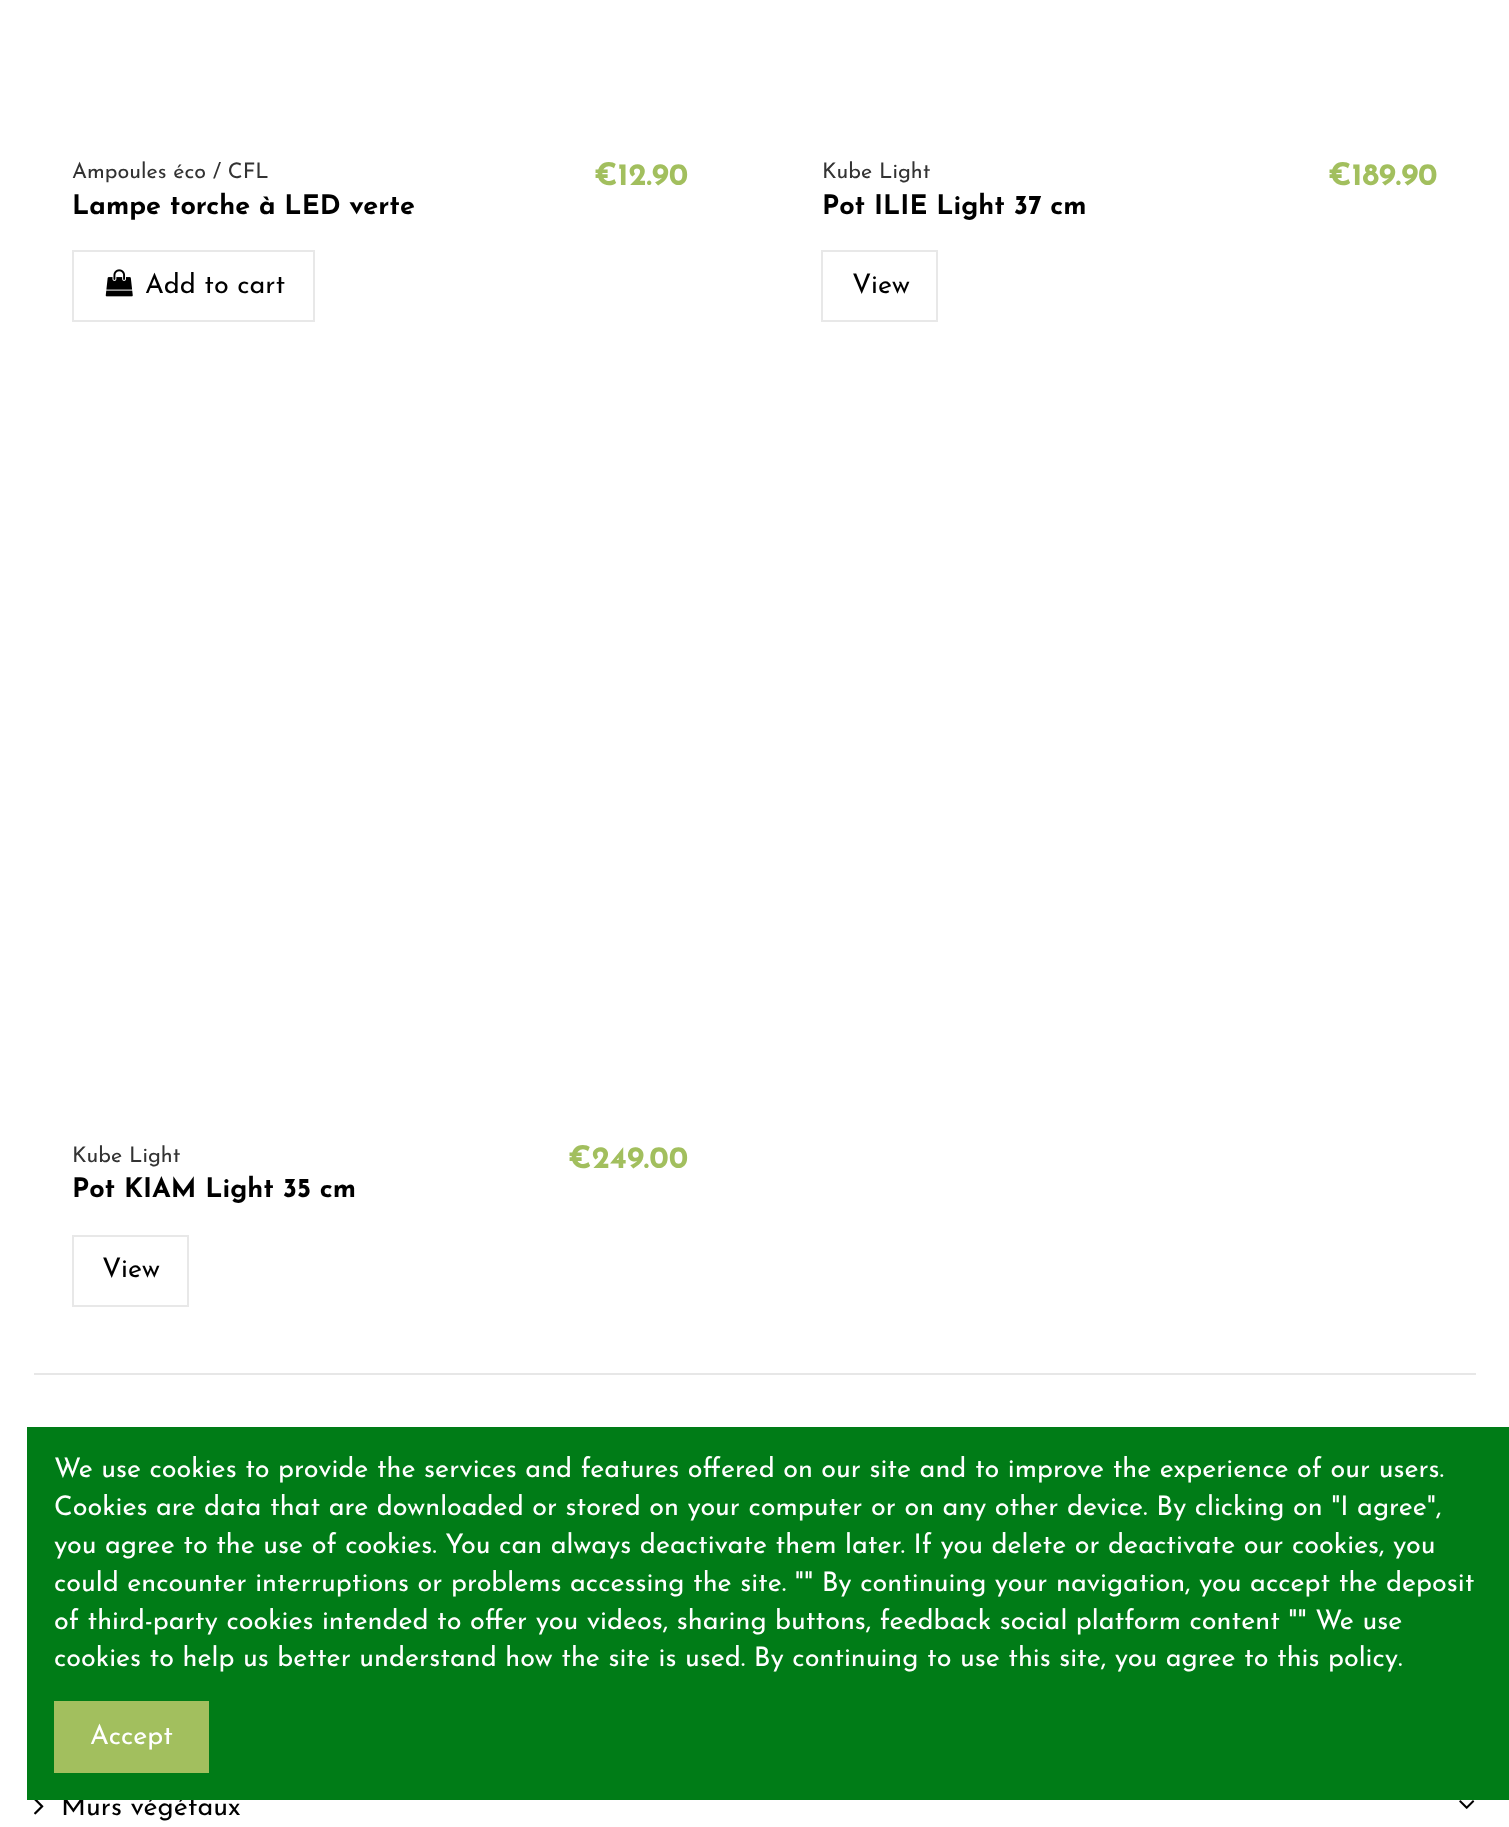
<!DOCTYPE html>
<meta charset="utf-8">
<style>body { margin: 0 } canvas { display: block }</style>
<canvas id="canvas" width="1509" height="1827"></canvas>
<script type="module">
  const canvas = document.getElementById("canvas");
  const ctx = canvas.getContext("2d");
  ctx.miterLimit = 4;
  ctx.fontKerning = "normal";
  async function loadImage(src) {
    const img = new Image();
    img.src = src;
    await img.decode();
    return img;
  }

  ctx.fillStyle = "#ffffff";
  ctx.fillRect(0, 0, 1509, 1827);
  ctx.font = "21.5px Josefin Sans";
  ctx.fillStyle = "#333333";
  ctx.fillText("Ampoules éco / CFL", 72, 178);
  ctx.font = "bold 27px Josefin Sans";
  ctx.fillStyle = "#000000";
  ctx.fillText("Lampe torche à LED verte", 72, 214);
  ctx.font = "bold 31px Josefin Sans";
  ctx.fillStyle = "#a2bf5e";
  ctx.fillText("€12.90", 594, 185);
  ctx.strokeStyle = "#e8e8e8";
  ctx.lineWidth = 2;
  ctx.strokeRect(73, 251, 241, 70);
  ctx.drawImage(await loadImage("img1.png"), 105, 269, 28, 28);
  ctx.font = "27px Josefin Sans";
  ctx.fillStyle = "#000000";
  ctx.fillText("Add to cart", 145, 293);
  ctx.font = "21.5px Josefin Sans";
  ctx.fillStyle = "#333333";
  ctx.fillText("Kube Light", 822, 178);
  ctx.font = "bold 27px Josefin Sans";
  ctx.fillStyle = "#000000";
  ctx.fillText("Pot ILIE Light 37 cm", 822, 214);
  ctx.font = "bold 31px Josefin Sans";
  ctx.fillStyle = "#a2bf5e";
  ctx.fillText("€189.90", 1328, 185);
  ctx.strokeRect(822, 251, 115, 70);
  ctx.font = "27px Josefin Sans";
  ctx.fillStyle = "#000000";
  ctx.fillText("View", 852, 293);
  ctx.font = "21.5px Josefin Sans";
  ctx.fillStyle = "#333333";
  ctx.fillText("Kube Light", 72, 1162);
  ctx.font = "bold 27px Josefin Sans";
  ctx.fillStyle = "#000000";
  ctx.fillText("Pot KIAM Light 35 cm", 72, 1197);
  ctx.font = "bold 31px Josefin Sans";
  ctx.fillStyle = "#a2bf5e";
  ctx.fillText("€249.00", 568, 1168);
  ctx.strokeRect(73, 1236, 115, 70);
  ctx.font = "27px Josefin Sans";
  ctx.fillStyle = "#000000";
  ctx.fillText("View", 102, 1277);
  ctx.fillStyle = "#e7e7e7";
  ctx.fillRect(34, 1373, 1442, 2);
  ctx.drawImage(await loadImage("img2.png"), 34, 1800, 10, 15);
  ctx.fillStyle = "#000000";
  ctx.fillText("Murs végétaux", 61, 1815);
  ctx.drawImage(await loadImage("img3.png"), 1459, 1800, 16, 9);
  ctx.fillStyle = "#007c17";
  ctx.fillRect(27, 1427, 1482, 373);
  ctx.fillStyle = "#ffffff";
  ctx.fillText("We use cookies to provide the services and features offered on our site and to improve the experience of our users.", 54, 1477);
  ctx.fillText("Cookies are data that are downloaded or stored on your computer or on any other device. By clicking on \"I agree\",", 54, 1515);
  ctx.fillText("you agree to the use of cookies. You can always deactivate them later. If you delete or deactivate our cookies, you", 54, 1553);
  ctx.fillText("could encounter interruptions or problems accessing the site. \"\" By continuing your navigation, you accept the deposit", 54, 1591);
  ctx.fillText("of third-party cookies intended to offer you videos, sharing buttons, feedback social platform content \"\" We use", 54, 1629);
  ctx.fillText("cookies to help us better understand how the site is used. By continuing to use this site, you agree to this policy.", 54, 1666);
  ctx.fillStyle = "#a2bf5e";
  ctx.fillRect(54, 1701, 155, 72);
  ctx.fillStyle = "#ffffff";
  ctx.fillText("Accept", 90, 1744);
</script>
